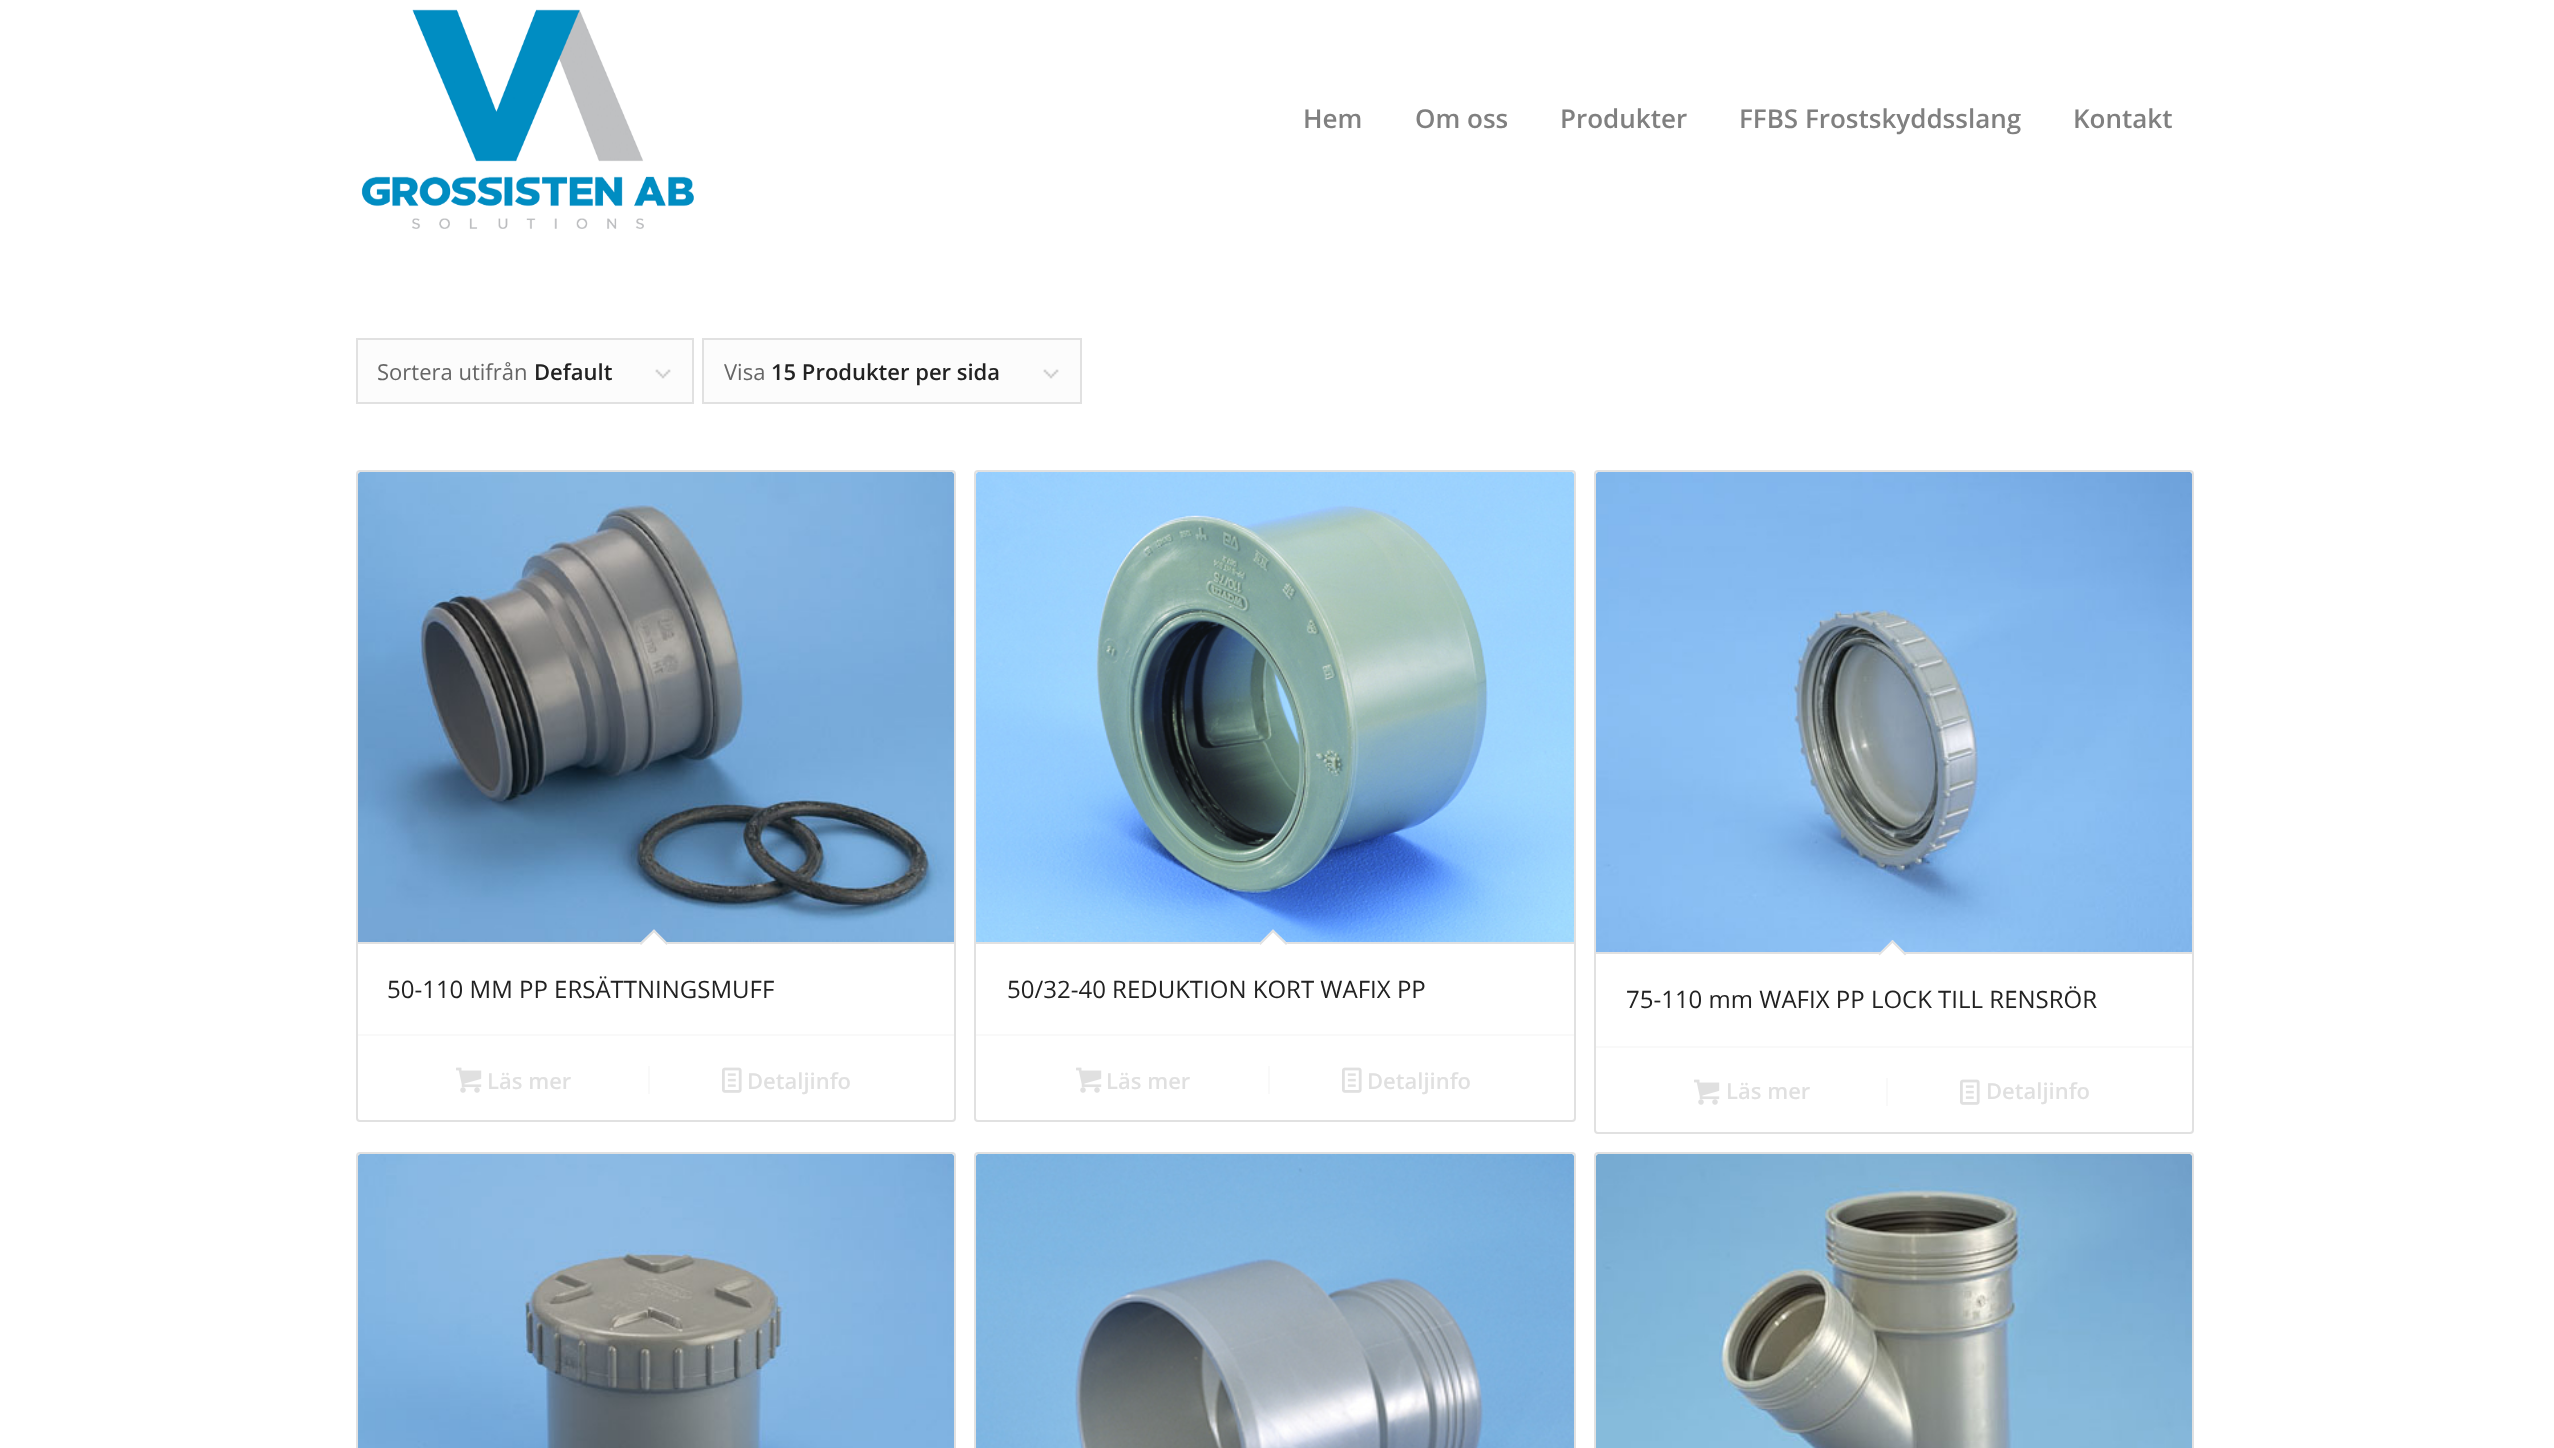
<!DOCTYPE html>
<meta charset="utf-8">
<style>body { margin: 0 } canvas { display: block }</style>
<canvas id="canvas" width="2554" height="1448"></canvas>
<script type="module">
  const canvas = document.getElementById("canvas");
  const ctx = canvas.getContext("2d");
  ctx.miterLimit = 4;
  ctx.fontKerning = "normal";
  async function loadImage(src) {
    const img = new Image();
    img.src = src;
    await img.decode();
    return img;
  }

  ctx.fillStyle = "#ffffff";
  ctx.fillRect(0, 0, 2554, 1448);
  ctx.drawImage(await loadImage("img1.png"), 361, 9, 333, 220);
  ctx.font = "600 26px Open Sans";
  ctx.fillStyle = "#808080";
  ctx.fillText("Hem", 1303, 128);
  ctx.fillText("Om oss", 1415, 128);
  ctx.fillText("Produkter", 1560, 128);
  ctx.fillText("FFBS Frostskyddsslang", 1739, 128);
  ctx.fillText("Kontakt", 2073, 128);
  ctx.fillStyle = "#fcfcfc";
  ctx.fillRect(358, 340, 334, 62);
  ctx.drawImage(await loadImage("img2.png"), 655, 369, 16, 10);
  ctx.strokeStyle = "#e1e1e1";
  ctx.lineWidth = 2;
  ctx.strokeRect(357, 339, 336, 64);
  ctx.font = "22px Open Sans";
  ctx.fillStyle = "#666666";
  ctx.fillText("Sortera utifrån", 377, 380);
  ctx.font = "600 22px Open Sans";
  ctx.fillStyle = "#222222";
  ctx.fillText("Default", 534, 380);
  ctx.fillStyle = "#fcfcfc";
  ctx.fillRect(704, 340, 376, 62);
  ctx.drawImage(await loadImage("img2.png"), 1043, 369, 16, 10);
  ctx.strokeRect(703, 339, 378, 64);
  ctx.font = "22px Open Sans";
  ctx.fillStyle = "#666666";
  ctx.fillText("Visa", 724, 380);
  ctx.font = "600 22px Open Sans";
  ctx.fillStyle = "#222222";
  ctx.fillText("15 Produkter per sida", 771, 380);
  ctx.beginPath();
  ctx.roundRect(357, 471, 598, 650, 3);
  ctx.stroke();
  ctx.drawImage(await loadImage("img3.png"), 358, 472, 596, 470);
  ctx.fillStyle = "#e1e1e1";
  ctx.fillRect(358, 942, 596, 2);
  ctx.fillStyle = "#ffffff";
  ctx.beginPath();
  ctx.moveTo(654, 929.5);
  ctx.lineTo(668, 943.5);
  ctx.lineTo(654, 957.5);
  ctx.lineTo(639.5, 943.5);
  ctx.closePath();
  ctx.fill();
  ctx.fillStyle = "#e1e1e1";
  ctx.beginPath();
  ctx.moveTo(654, 929.5);
  ctx.lineTo(668, 943.5);
  ctx.lineTo(666.5, 945);
  ctx.lineTo(652.5, 931);
  ctx.closePath();
  ctx.fill();
  ctx.beginPath();
  ctx.moveTo(654, 929.5);
  ctx.lineTo(655.5, 931);
  ctx.lineTo(641, 945);
  ctx.lineTo(639.5, 943.5);
  ctx.closePath();
  ctx.fill();
  ctx.font = "24px Open Sans";
  ctx.fillStyle = "#222222";
  ctx.fillText("50-110 MM PP ERSÄTTNINGSMUFF", 387, 998);
  ctx.fillStyle = "#f9f9f9";
  ctx.fillRect(358, 1034, 596, 2);
  ctx.drawImage(await loadImage("img4.png"), 456, 1067, 26, 26);
  ctx.font = "600 22px Open Sans";
  ctx.fillStyle = "#e0e0e0";
  ctx.fillText("Läs mer", 487, 1089);
  ctx.fillStyle = "#f9f9f9";
  ctx.fillRect(648, 1066, 2, 28);
  ctx.drawImage(await loadImage("img5.png"), 722, 1067, 20, 26);
  ctx.fillStyle = "#e0e0e0";
  ctx.fillText("Detaljinfo", 747, 1089);
  ctx.beginPath();
  ctx.roundRect(975, 471, 600, 650, 3);
  ctx.stroke();
  ctx.drawImage(await loadImage("img6.png"), 976, 472, 598, 470);
  ctx.fillStyle = "#e1e1e1";
  ctx.fillRect(976, 942, 598, 2);
  ctx.fillStyle = "#ffffff";
  ctx.beginPath();
  ctx.moveTo(1273, 929.5);
  ctx.lineTo(1287.5, 943.5);
  ctx.lineTo(1273, 957.5);
  ctx.lineTo(1259, 943.5);
  ctx.closePath();
  ctx.fill();
  ctx.fillStyle = "#e1e1e1";
  ctx.beginPath();
  ctx.moveTo(1273, 929.5);
  ctx.lineTo(1287.5, 943.5);
  ctx.lineTo(1286, 945);
  ctx.lineTo(1271.5, 931);
  ctx.closePath();
  ctx.fill();
  ctx.beginPath();
  ctx.moveTo(1273, 929.5);
  ctx.lineTo(1274.5, 931);
  ctx.lineTo(1260.5, 945);
  ctx.lineTo(1259, 943.5);
  ctx.closePath();
  ctx.fill();
  ctx.font = "24px Open Sans";
  ctx.fillStyle = "#222222";
  ctx.fillText("50/32-40 REDUKTION KORT WAFIX PP", 1007, 998);
  ctx.fillStyle = "#f9f9f9";
  ctx.fillRect(976, 1034, 598, 2);
  ctx.drawImage(await loadImage("img4.png"), 1076, 1067, 26, 26);
  ctx.font = "600 22px Open Sans";
  ctx.fillStyle = "#e0e0e0";
  ctx.fillText("Läs mer", 1106, 1089);
  ctx.fillStyle = "#f9f9f9";
  ctx.fillRect(1268, 1066, 2, 28);
  ctx.drawImage(await loadImage("img5.png"), 1342, 1067, 20, 26);
  ctx.fillStyle = "#e0e0e0";
  ctx.fillText("Detaljinfo", 1367, 1089);
  ctx.beginPath();
  ctx.roundRect(1595, 471, 598, 662, 3);
  ctx.stroke();
  ctx.drawImage(await loadImage("img7.png"), 1596, 472, 596, 480);
  ctx.fillStyle = "#e1e1e1";
  ctx.fillRect(1596, 952, 596, 2);
  ctx.fillStyle = "#ffffff";
  ctx.beginPath();
  ctx.moveTo(1892.5, 940);
  ctx.lineTo(1906.5, 954);
  ctx.lineTo(1892.5, 968.5);
  ctx.lineTo(1878.5, 954);
  ctx.closePath();
  ctx.fill();
  ctx.fillStyle = "#e1e1e1";
  ctx.beginPath();
  ctx.moveTo(1892.5, 940);
  ctx.lineTo(1906.5, 954);
  ctx.lineTo(1905, 955.5);
  ctx.lineTo(1891, 941.5);
  ctx.closePath();
  ctx.fill();
  ctx.beginPath();
  ctx.moveTo(1892.5, 940);
  ctx.lineTo(1894, 941.5);
  ctx.lineTo(1879.5, 955.5);
  ctx.lineTo(1878.5, 954);
  ctx.closePath();
  ctx.fill();
  ctx.font = "24px Open Sans";
  ctx.fillStyle = "#222222";
  ctx.fillText("75-110 mm WAFIX PP LOCK TILL RENSRÖR", 1626, 1008);
  ctx.fillStyle = "#f9f9f9";
  ctx.fillRect(1596, 1046, 596, 2);
  ctx.drawImage(await loadImage("img4.png"), 1694, 1079, 26, 26);
  ctx.font = "600 22px Open Sans";
  ctx.fillStyle = "#e0e0e0";
  ctx.fillText("Läs mer", 1726, 1099);
  ctx.fillStyle = "#f9f9f9";
  ctx.fillRect(1886, 1078, 2, 28);
  ctx.drawImage(await loadImage("img5.png"), 1960, 1079, 20, 26);
  ctx.fillStyle = "#e0e0e0";
  ctx.fillText("Detaljinfo", 1986, 1099);
  ctx.beginPath();
  ctx.roundRect(357, 1153, 598, 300, 3);
  ctx.stroke();
  ctx.drawImage(await loadImage("img8.png"), 358, 1154, 596, 294);
  ctx.beginPath();
  ctx.roundRect(975, 1153, 600, 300, 3);
  ctx.stroke();
  ctx.drawImage(await loadImage("img9.png"), 976, 1154, 598, 294);
  ctx.beginPath();
  ctx.roundRect(1595, 1153, 598, 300, 3);
  ctx.stroke();
  ctx.drawImage(await loadImage("img10.png"), 1596, 1154, 596, 294);
</script>
